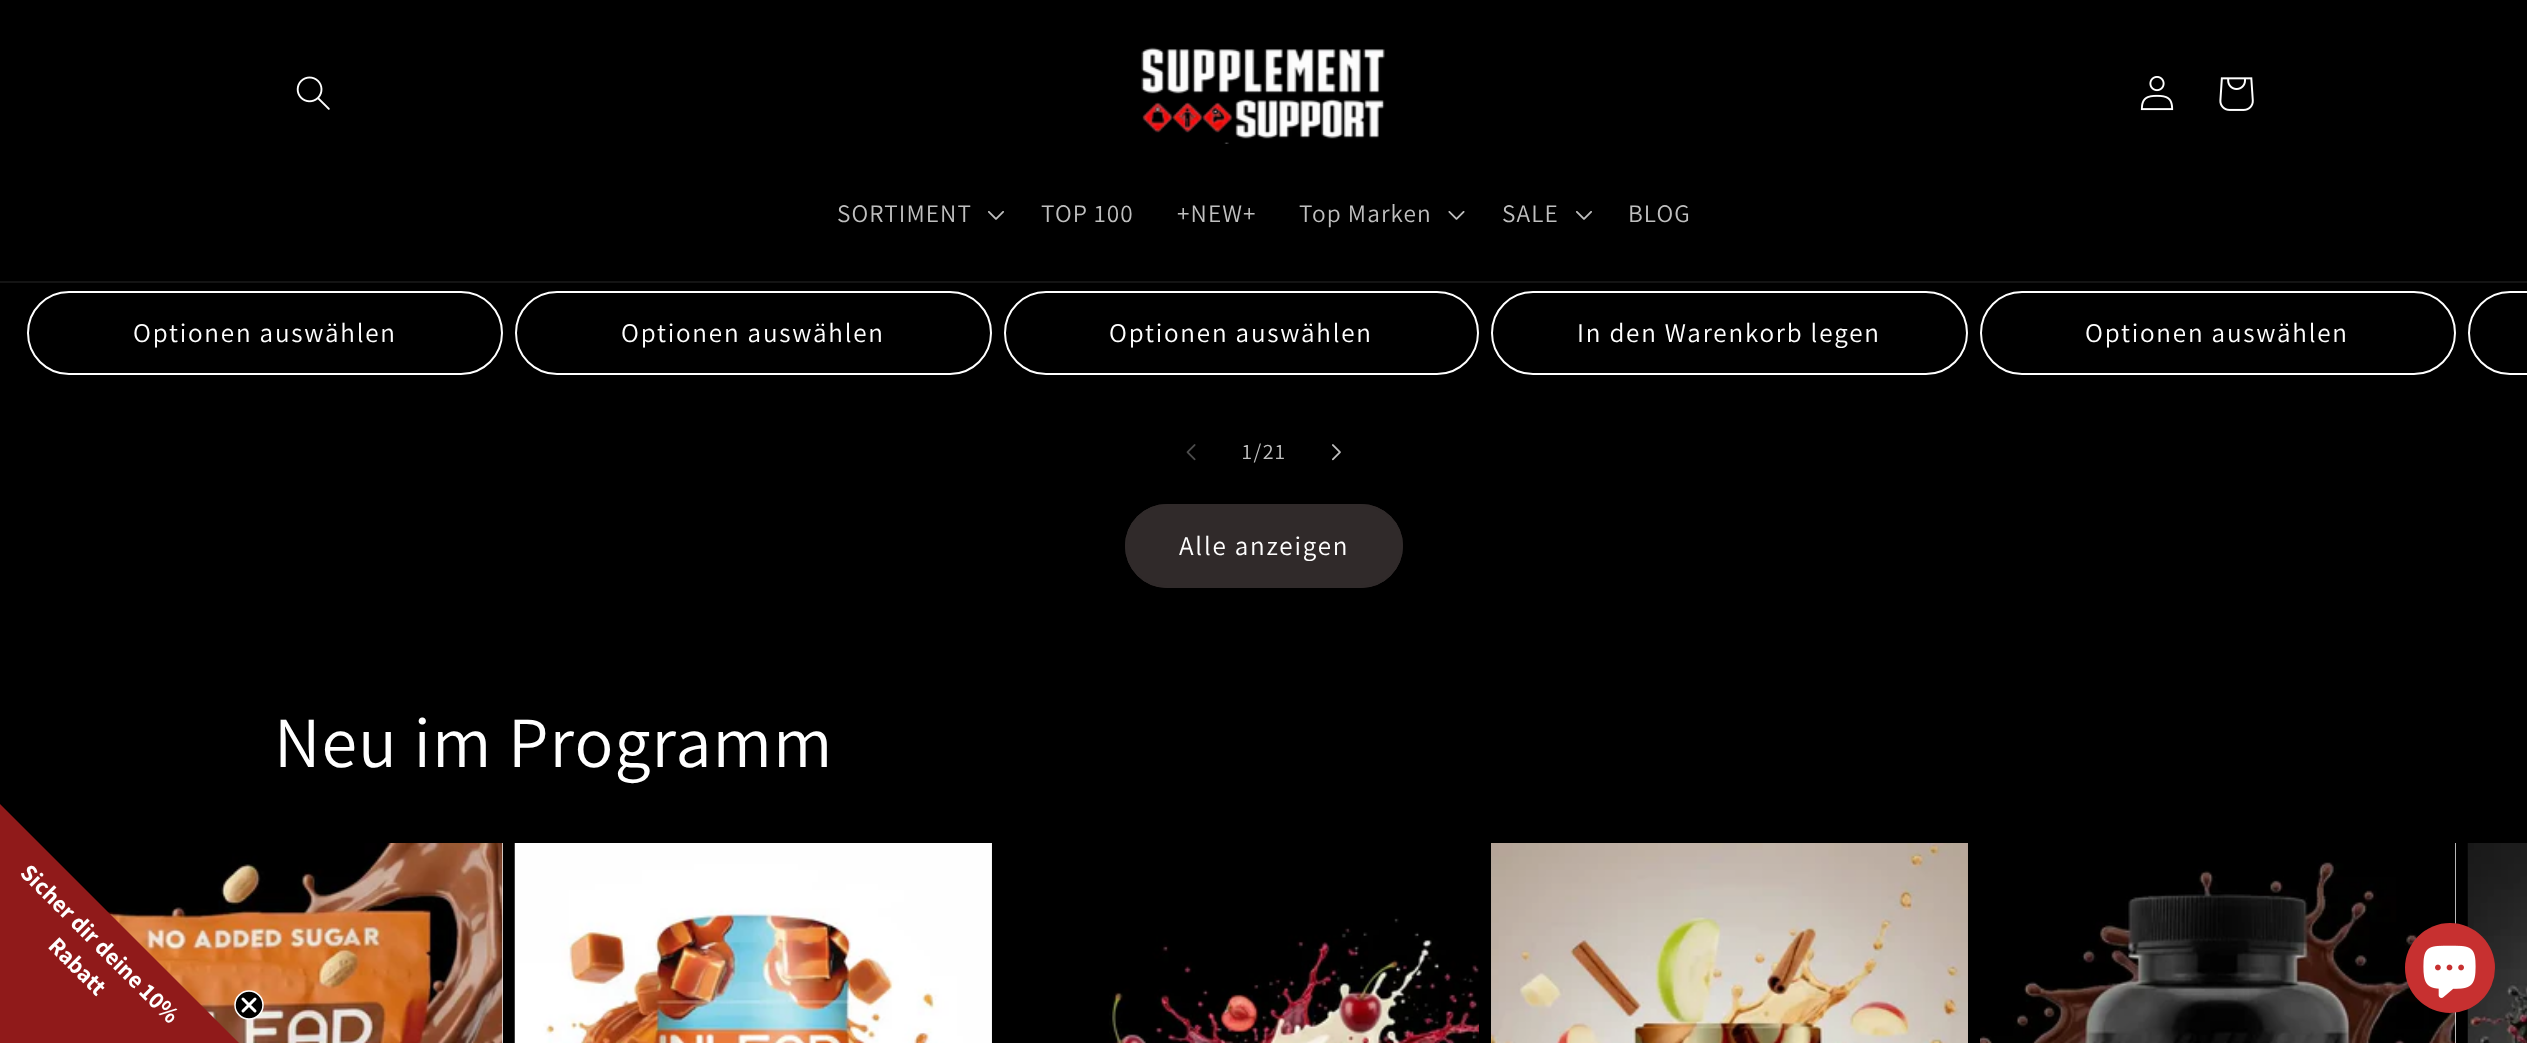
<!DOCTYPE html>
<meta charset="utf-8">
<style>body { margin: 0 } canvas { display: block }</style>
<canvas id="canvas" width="2527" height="1043"></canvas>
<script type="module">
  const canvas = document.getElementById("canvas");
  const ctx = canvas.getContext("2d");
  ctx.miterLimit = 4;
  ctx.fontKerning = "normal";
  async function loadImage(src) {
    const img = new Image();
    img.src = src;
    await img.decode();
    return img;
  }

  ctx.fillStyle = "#000000";
  ctx.fillRect(0, 0, 2527, 1043);
  ctx.fillStyle = "#141414";
  ctx.fillRect(0, 281, 2527, 2);
  ctx.drawImage(await loadImage("img1.png"), 296, 76, 34, 34);
  ctx.drawImage(await loadImage("img2.png"), 1141, 47, 244, 97);
  ctx.drawImage(await loadImage("img3.png"), 2140, 76, 34, 35);
  ctx.drawImage(await loadImage("img4.png"), 2219, 77, 35, 34);
  ctx.letterSpacing = "1.1px";
  ctx.font = "25.25px Assistant";
  ctx.fillStyle = "#bfbfbf";
  ctx.fillText("SORTIMENT", 837, 222);
  ctx.drawImage(await loadImage("img5.png"), 988, 211, 16, 9);
  ctx.fillText("TOP 100", 1041, 222);
  ctx.fillText("+NEW+", 1177, 222);
  ctx.fillText("Top Marken", 1299, 222);
  ctx.drawImage(await loadImage("img6.png"), 1448, 211, 17, 9);
  ctx.fillText("SALE", 1502, 222);
  ctx.drawImage(await loadImage("img5.png"), 1576, 211, 16, 9);
  ctx.fillText("BLOG", 1628, 222);
  ctx.beginPath();
  ctx.roundRect(28, 292, 474, 82, 41);
  ctx.strokeStyle = "#ffffff";
  ctx.lineWidth = 2;
  ctx.stroke();
  ctx.letterSpacing = "1.8px";
  ctx.font = "27px Assistant";
  ctx.fillStyle = "#ffffff";
  ctx.fillText("Optionen auswählen", 133, 342);
  ctx.beginPath();
  ctx.roundRect(516, 292, 475, 82, 41);
  ctx.stroke();
  ctx.fillText("Optionen auswählen", 621, 342);
  ctx.beginPath();
  ctx.roundRect(1005, 292, 473, 82, 41);
  ctx.stroke();
  ctx.fillText("Optionen auswählen", 1109, 342);
  ctx.beginPath();
  ctx.roundRect(1492, 292, 475, 82, 41);
  ctx.stroke();
  ctx.fillText("In den Warenkorb legen", 1577, 342);
  ctx.beginPath();
  ctx.roundRect(1981, 292, 474, 82, 41);
  ctx.stroke();
  ctx.fillText("Optionen auswählen", 2085, 342);
  ctx.beginPath();
  ctx.roundRect(2469, 292, 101, 82, 41);
  ctx.stroke();
  ctx.drawImage(await loadImage("img7.png"), 1186, 444, 10, 17);
  ctx.letterSpacing = "1.5px";
  ctx.font = "22px Assistant";
  ctx.fillStyle = "#bfbfbf";
  ctx.fillText("1/21", 1242, 459);
  ctx.drawImage(await loadImage("img8.png"), 1332, 444, 9, 17);
  ctx.fillStyle = "#302a2a";
  ctx.beginPath();
  ctx.roundRect(1125, 504, 278, 84, 42);
  ctx.fill();
  ctx.beginPath();
  ctx.roundRect(1126, 505, 276, 82, 41);
  ctx.strokeStyle = "#302a2a";
  ctx.stroke();
  ctx.letterSpacing = "1.8px";
  ctx.font = "27px Assistant";
  ctx.fillStyle = "#ffffff";
  ctx.fillText("Alle anzeigen", 1179, 555);
  ctx.letterSpacing = "1.1px";
  ctx.font = "72px Assistant";
  ctx.fillText("Neu im Programm", 274, 767);
  ctx.fillStyle = "#f3f3f3";
  ctx.fillRect(502, 843, 1, 200);
  ctx.drawImage(await loadImage("img9.png"), 39, 843, 464, 200);
  ctx.fillRect(991, 843, 1, 200);
  ctx.drawImage(await loadImage("img10.png"), 514, 843, 477, 200);
  ctx.drawImage(await loadImage("img11.png"), 1004, 843, 475, 200);
  ctx.drawImage(await loadImage("img12.png"), 1491, 843, 477, 200);
  ctx.fillRect(2455, 843, 1, 200);
  ctx.drawImage(await loadImage("img13.png"), 1980, 843, 476, 200);
  ctx.drawImage(await loadImage("img14.png"), 2467, 843, 60, 200);
  ctx.fillStyle = "#901a1a";
  ctx.beginPath();
  ctx.moveTo(0, 804);
  ctx.lineTo(0, 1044);
  ctx.lineTo(240, 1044);
  ctx.closePath();
  ctx.fill();
  ctx.letterSpacing = "0px";
  ctx.font = "bold 24px Assistant";
  ctx.fillStyle = "#ffffff";
  ctx.save();
  ctx.translate(19, 874);
  ctx.rotate(45 * Math.PI / 180);
  ctx.fillText("Sicher dir deine 10%", 0, 0);
  ctx.restore();
  ctx.save();
  ctx.translate(47, 947);
  ctx.rotate(45 * Math.PI / 180);
  ctx.fillText("Rabatt", 0, 0);
  ctx.restore();
  ctx.fillStyle = "#000000";
  ctx.beginPath();
  ctx.arc(249, 1005, 14, 0, Math.PI * 2);
  ctx.fill();
  ctx.strokeStyle = "#ffffff";
  ctx.lineWidth = 1.5;
  ctx.stroke();
  ctx.beginPath();
  ctx.moveTo(243, 999);
  ctx.lineTo(255, 1011);
  ctx.moveTo(243, 1011);
  ctx.lineTo(255, 999);
  ctx.closePath();
  ctx.lineWidth = 3;
  ctx.lineCap = "round";
  ctx.lineJoin = "round";
  ctx.stroke();
  ctx.fillStyle = "#c73030";
  ctx.beginPath();
  ctx.arc(2450, 968, 45, 0, Math.PI * 2);
  ctx.fill();
  ctx.drawImage(await loadImage("img15.png"), 2423, 945, 53, 53);
</script>
